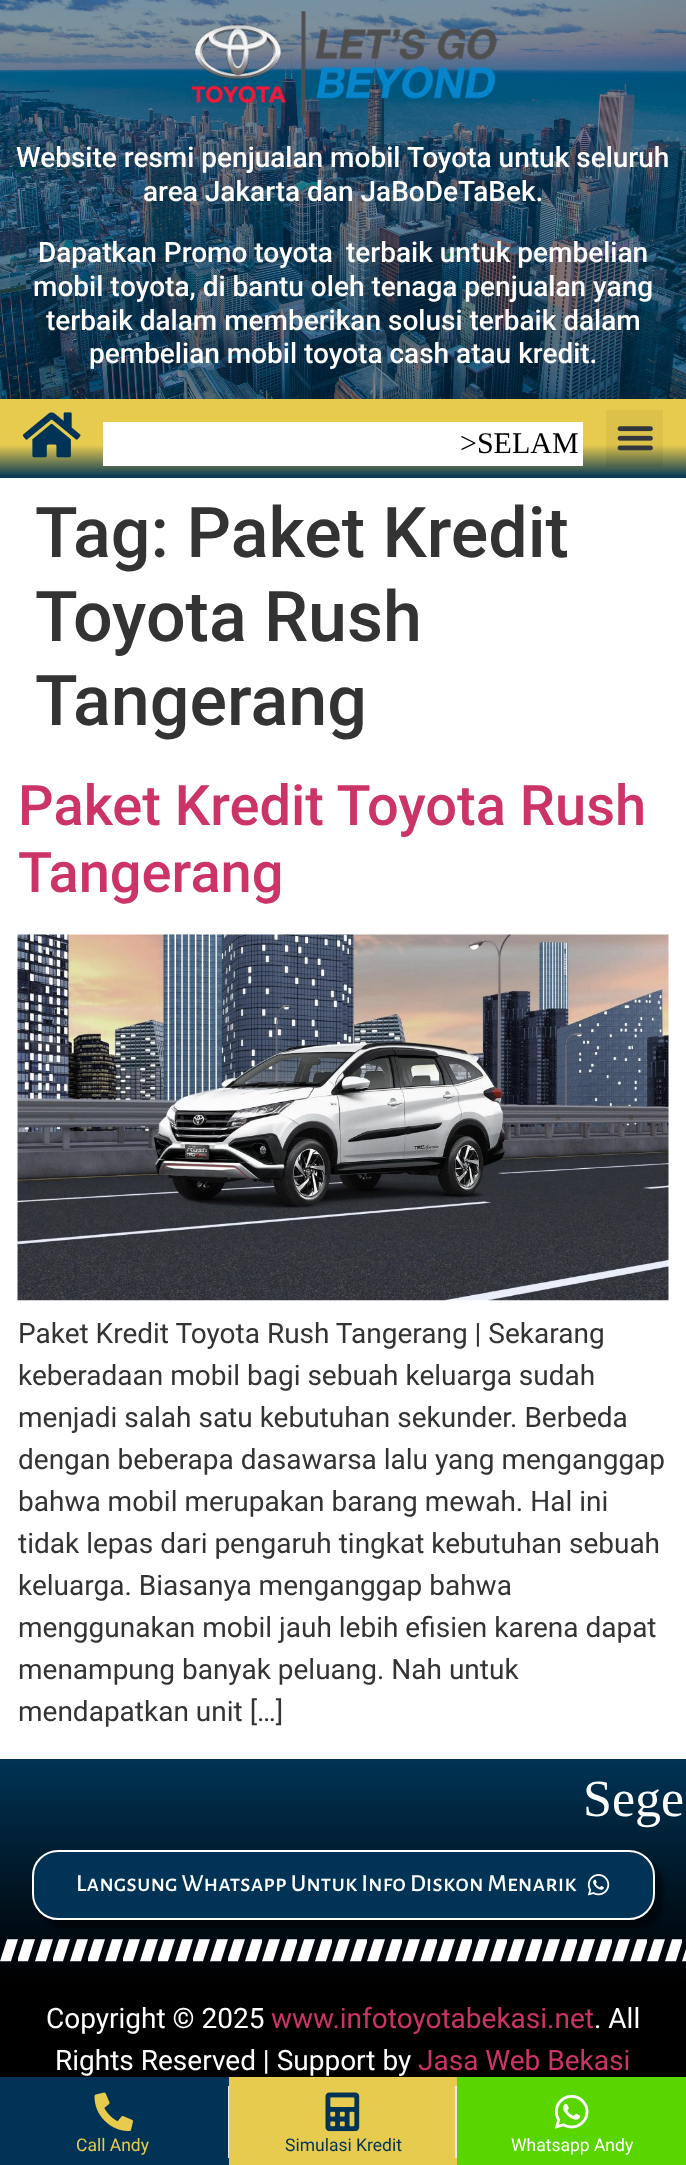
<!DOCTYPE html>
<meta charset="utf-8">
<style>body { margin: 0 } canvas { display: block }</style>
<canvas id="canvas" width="686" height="2165"></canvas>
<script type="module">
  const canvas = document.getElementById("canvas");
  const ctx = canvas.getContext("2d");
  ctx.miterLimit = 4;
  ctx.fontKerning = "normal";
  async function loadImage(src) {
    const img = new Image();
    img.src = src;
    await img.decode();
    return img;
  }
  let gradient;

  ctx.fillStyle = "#ffffff";
  ctx.fillRect(0, 0, 686, 2165);
  ctx.drawImage(await loadImage("img1.png"), 0, 0, 686, 399);
  ctx.drawImage(await loadImage("img2.png"), 191, 11, 306, 107);
  ctx.font = "500 28px Roboto";
  ctx.fillText("Website resmi penjualan mobil", 16, 167);
  ctx.fillText("Toyota untuk seluruh", 407, 167);
  ctx.fillText("area Jakarta dan JaBoDeTaBek.", 143, 201);
  ctx.fillText("Dapatkan Promo toyota", 38, 262);
  ctx.fillText("terbaik untuk pembelian", 346, 262);
  ctx.fillText("mobil t", 33, 296);
  ctx.fillText("oyota, di bantu oleh tenaga penjualan yang", 120, 296);
  ctx.fillText("terbaik dalam memberikan solusi terbaik dalam", 46, 330);
  ctx.fillText("pembelian mobil toyota cash atau kredit.", 89, 363);
  gradient = ctx.createLinearGradient(343, 399, 343, 478);
  gradient.addColorStop(0.58, "#e7cb4e");
  gradient.addColorStop(1, "#003355");
  ctx.fillStyle = gradient;
  ctx.fillRect(0, 399, 686, 79);
  ctx.drawImage(await loadImage("img3.png"), 23, 412, 58, 46);
  ctx.fillStyle = "#ffffff";
  ctx.fillRect(103, 422, 480, 44);
  ctx.font = "30px Liberation Serif";
  ctx.fillStyle = "#000000";
  ctx.fillText(">SELAM", 460, 453);
  ctx.fillStyle = "rgba(0, 0, 0, 0.05)";
  ctx.fillRect(606, 410, 57, 57);
  ctx.drawImage(await loadImage("img4.png"), 617, 426, 36, 25);
  ctx.font = "500 70px Roboto";
  ctx.fillStyle = "#333333";
  ctx.fillText("Tag: Paket Kredit", 35, 557);
  ctx.fillText("Toyota Rush", 35, 641);
  ctx.fillText("Tangerang", 35, 725);
  ctx.font = "500 56px Roboto";
  ctx.fillStyle = "#cc3366";
  ctx.fillText("Paket Kredit Toyota Rush", 18, 825);
  ctx.fillText("Tangerang", 18, 892);
  ctx.drawImage(await loadImage("img5.png"), 17, 934, 652, 367);
  ctx.font = "28px Roboto";
  ctx.fillStyle = "#333333";
  ctx.fillText("Paket Kredit Toyota Rush Tangerang | Sekarang", 18, 1343);
  ctx.fillText("keberadaan mobil bagi sebuah keluarga sudah", 18, 1385);
  ctx.fillText("menjadi salah satu kebutuhan sekunder. Berbeda", 18, 1427);
  ctx.fillText("dengan beberapa dasawarsa lalu yang menganggap", 18, 1469);
  ctx.fillText("bahwa mobil merupakan barang mewah. Hal ini", 18, 1511);
  ctx.fillText("tidak lepas dari pengaruh tingkat kebutuhan sebuah", 18, 1553);
  ctx.fillText("keluarga. Biasanya menganggap bahwa", 18, 1595);
  ctx.fillText("menggunakan mobil jauh lebih efisien karena dapat", 18, 1637);
  ctx.fillText("menampung banyak peluang. Nah untuk", 18, 1679);
  ctx.fillText("mendapatkan unit […]", 18, 1721);
  gradient = ctx.createLinearGradient(343, 1759, 343, 1981);
  gradient.addColorStop(0, "#003355");
  gradient.addColorStop(1, "#000000");
  ctx.fillStyle = gradient;
  ctx.fillRect(0, 1759, 686, 222);
  ctx.font = "52px Liberation Serif";
  ctx.fillStyle = "#ffffff";
  ctx.fillText("Sege", 583, 1816);
  ctx.fillStyle = "rgba(0, 0, 0, 0.5)";
  ctx.filter = "blur(2px)";
  ctx.beginPath();
  ctx.roundRect(40, 1859, 623, 70, 26);
  ctx.fill();
  ctx.filter = "none";
  ctx.fillStyle = "#003355";
  ctx.beginPath();
  ctx.roundRect(33, 1851, 621, 68, 25);
  ctx.fill();
  ctx.strokeStyle = "#ffffff";
  ctx.lineWidth = 2;
  ctx.stroke();
  ctx.font = "500 24.5px Alegreya Sans SC";
  ctx.fillStyle = "#ffffff";
  ctx.fillText("Langsung Whatsapp Untuk Info Diskon Menarik", 76, 1891);
  ctx.drawImage(await loadImage("img6.png"), 587, 1874, 23, 22);
  ctx.drawImage(await loadImage("img7.png"), 0, 1939, 686, 23);
  ctx.fillStyle = "#000000";
  ctx.fillRect(0, 1981, 686, 96);
  ctx.font = "28px Roboto";
  ctx.fillStyle = "#ffffff";
  ctx.fillText("Copyright © 2025", 46, 2028);
  ctx.fillStyle = "#cc3366";
  ctx.fillText("www.infotoyotabekasi.net", 271, 2028);
  ctx.fillStyle = "#ffffff";
  ctx.fillText(". All", 594, 2028);
  ctx.fillText("Rights Reserved | Support by", 55, 2070);
  ctx.fillStyle = "#cc3366";
  ctx.fillText("Jasa Web Bekasi", 418, 2070);
  ctx.fillStyle = "rgba(0, 0, 0, 0.12)";
  ctx.filter = "blur(1px)";
  ctx.beginPath();
  ctx.rect(-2, 2076, 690, 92);
  ctx.fill();
  ctx.filter = "none";
  ctx.fillStyle = "#003355";
  ctx.fillRect(0, 2077, 229, 88);
  ctx.drawImage(await loadImage("img8.png"), 94, 2092, 39, 40);
  ctx.fillStyle = "#ebebeb";
  ctx.fillRect(228, 2086, 1, 72);
  ctx.font = "17.5px Roboto";
  ctx.fillStyle = "#e7cb4e";
  ctx.fillText("Call Andy", 76, 2151);
  ctx.fillRect(229, 2077, 228, 88);
  ctx.drawImage(await loadImage("img9.png"), 325, 2092, 35, 40);
  ctx.fillStyle = "#ebebeb";
  ctx.fillRect(455, 2086, 2, 72);
  ctx.fillStyle = "#003355";
  ctx.fillText("Simulasi Kredit", 285, 2151);
  ctx.fillStyle = "#59d600";
  ctx.fillRect(457, 2077, 229, 88);
  ctx.drawImage(await loadImage("img10.png"), 554, 2095, 35, 34);
  ctx.fillStyle = "#ffffff";
  ctx.fillText("Whatsapp Andy", 511, 2151);
</script>
